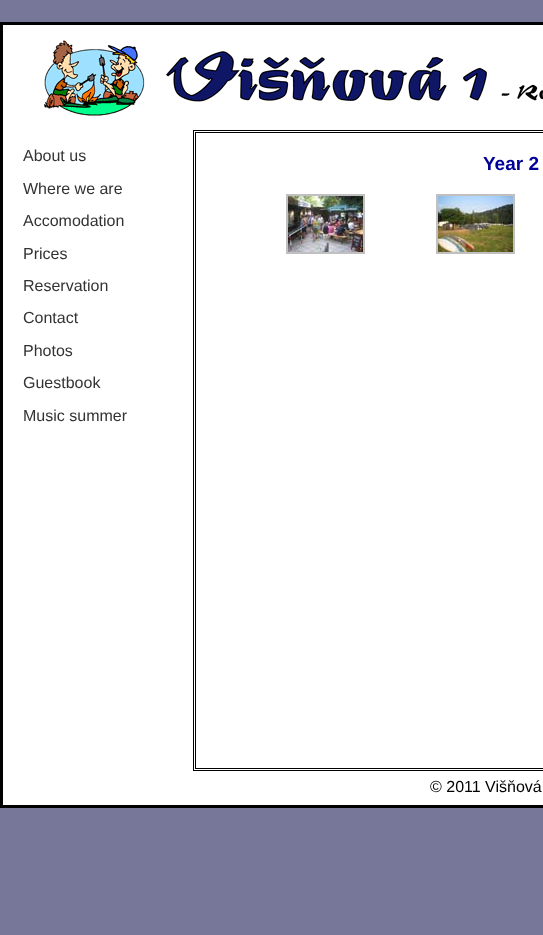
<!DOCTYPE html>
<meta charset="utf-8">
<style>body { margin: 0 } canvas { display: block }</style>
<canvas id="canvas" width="543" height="935"></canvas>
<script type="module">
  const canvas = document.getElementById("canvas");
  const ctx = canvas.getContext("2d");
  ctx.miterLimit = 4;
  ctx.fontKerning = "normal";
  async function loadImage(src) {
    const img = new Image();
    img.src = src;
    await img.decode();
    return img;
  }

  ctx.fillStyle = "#777799";
  ctx.fillRect(0, 0, 543, 935);
  ctx.fillStyle = "#ffffff";
  ctx.beginPath();
  ctx.rect(1.5, 23.5, 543, 783);
  ctx.fill();
  ctx.strokeStyle = "#000000";
  ctx.lineWidth = 3;
  ctx.stroke();
  ctx.drawImage(await loadImage("img1.png"), 44, 40, 499, 76);
  ctx.font = "16px Liberation Sans";
  ctx.fillStyle = "#333333";
  ctx.fillText("About us", 23, 161);
  ctx.fillText("Where we are", 23, 194);
  ctx.fillText("Accomodation", 23, 226);
  ctx.fillText("Prices", 23, 259);
  ctx.fillText("Reservation", 23, 291);
  ctx.fillText("Contact", 23, 323);
  ctx.fillText("Photos", 23, 356);
  ctx.fillText("Guestbook", 23, 388);
  ctx.fillText("Music summer", 23, 421);
  ctx.lineWidth = 1;
  ctx.strokeRect(193.5, 130.5, 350, 640);
  ctx.strokeRect(195.5, 132.5, 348, 636);
  ctx.font = "bold 19px Liberation Sans";
  ctx.fillStyle = "#000099";
  ctx.fillText("Year 2", 483, 170);
  ctx.strokeStyle = "#c0c0c0";
  ctx.lineWidth = 2;
  ctx.strokeRect(287, 195, 77, 58);
  ctx.drawImage(await loadImage("img2.png"), 288, 196, 75, 56);
  ctx.strokeRect(437, 195, 77, 58);
  ctx.drawImage(await loadImage("img3.png"), 438, 196, 75, 56);
  ctx.font = "16px Liberation Sans";
  ctx.fillStyle = "#000000";
  ctx.fillText("© 2011 Višňová", 430, 792);
</script>
